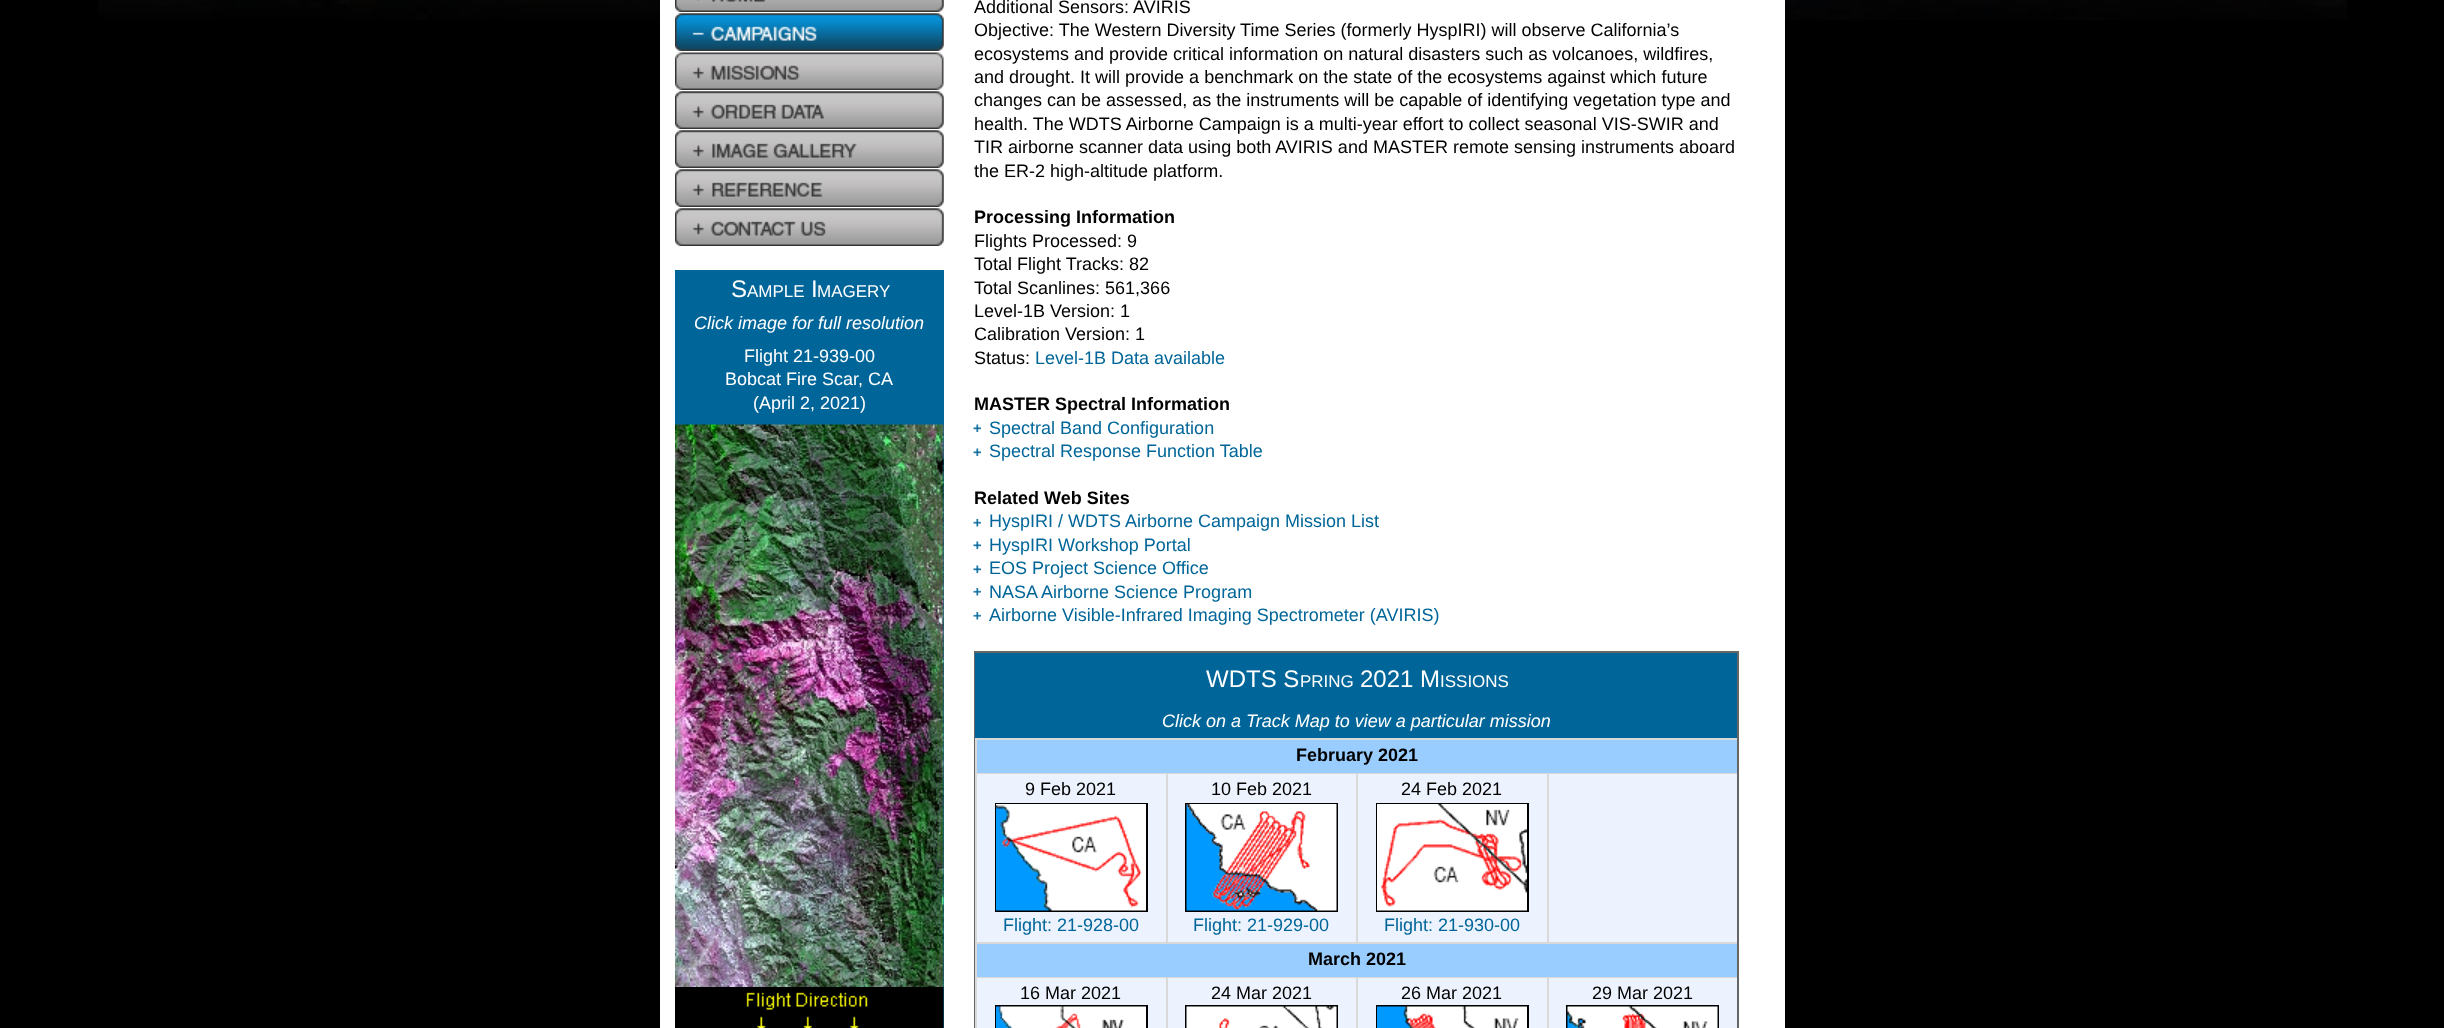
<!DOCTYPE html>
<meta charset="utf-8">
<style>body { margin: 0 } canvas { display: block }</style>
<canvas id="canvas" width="2444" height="1028"></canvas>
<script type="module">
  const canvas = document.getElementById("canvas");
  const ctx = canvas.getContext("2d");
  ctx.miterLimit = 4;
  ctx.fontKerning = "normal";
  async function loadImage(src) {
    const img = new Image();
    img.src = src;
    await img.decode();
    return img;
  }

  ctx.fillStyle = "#000000";
  ctx.fillRect(0, 0, 2444, 1028);
  ctx.drawImage(await loadImage("img1.png"), 98, 0, 2249, 20);
  ctx.fillStyle = "#ffffff";
  ctx.fillRect(660, 0, 1125, 1028);
  ctx.drawImage(await loadImage("img2.png"), 675, 0, 269, 12);
  ctx.drawImage(await loadImage("img3.png"), 675, 0, 269, 12);
  ctx.drawImage(await loadImage("img4.png"), 675, 13, 269, 38);
  ctx.drawImage(await loadImage("img5.png"), 675, 13, 269, 38);
  ctx.drawImage(await loadImage("img6.png"), 675, 52, 269, 38);
  ctx.drawImage(await loadImage("img7.png"), 675, 91, 269, 38);
  ctx.drawImage(await loadImage("img8.png"), 675, 91, 269, 38);
  ctx.drawImage(await loadImage("img9.png"), 675, 130, 269, 38);
  ctx.drawImage(await loadImage("img10.png"), 675, 130, 269, 38);
  ctx.drawImage(await loadImage("img11.png"), 675, 169, 269, 38);
  ctx.drawImage(await loadImage("img12.png"), 675, 169, 269, 38);
  ctx.drawImage(await loadImage("img13.png"), 675, 208, 269, 38);
  ctx.drawImage(await loadImage("img14.png"), 675, 208, 269, 38);
  ctx.fillStyle = "#006699";
  ctx.fillRect(675, 270, 269, 758);
  ctx.font = "24px Liberation Sans";
  ctx.fillStyle = "#ffffff";
  ctx.fillText("S", 731, 297);
  ctx.font = "17px Liberation Sans";
  ctx.fillText("AMPLE", 747, 297);
  ctx.font = "24px Liberation Sans";
  ctx.fillText("I", 811, 297);
  ctx.font = "17px Liberation Sans";
  ctx.fillText("MAGERY", 817, 297);
  ctx.font = "italic 18px Liberation Sans";
  ctx.fillText("Click image for full resolution", 694, 329);
  ctx.font = "18px Liberation Sans";
  ctx.fillText("Flight 21-939-00", 744, 362);
  ctx.fillText("Bobcat Fire Scar, CA", 725, 385);
  ctx.fillText("(April 2, 2021)", 753, 409);
  ctx.drawImage(await loadImage("img15.png"), 675, 424, 269, 563);
  ctx.drawImage(await loadImage("img16.png"), 675, 987, 269, 41);
  ctx.fillStyle = "#000000";
  ctx.fillText("Additional Sensors: AVIRIS", 974, 13);
  ctx.fillText("Objective: The Western Diversity Time Series (formerly HyspIRI) will observe California’s", 974, 36);
  ctx.fillText("ecosystems and provide critical information on natural disasters such as volcanoes, wildfires,", 974, 60);
  ctx.fillText("and drought. It will provide a benchmark on the state of the ecosystems against which future", 974, 83);
  ctx.fillText("changes can be assessed, as the instruments will be capable of identifying vegetation type and", 974, 106);
  ctx.fillText("health. The WDTS Airborne Campaign is a multi-year effort to collect seasonal VIS-SWIR and", 974, 130);
  ctx.fillText("TIR airborne scanner data using both AVIRIS and MASTER remote sensing instruments aboard", 974, 153);
  ctx.fillText("the ER-2 high-altitude platform.", 974, 177);
  ctx.font = "bold 18px Liberation Sans";
  ctx.fillText("Processing Information", 974, 223);
  ctx.font = "18px Liberation Sans";
  ctx.fillText("Flights Processed: 9", 974, 247);
  ctx.fillText("Total Flight Tracks: 82", 974, 270);
  ctx.fillText("Total Scanlines: 561,366", 974, 294);
  ctx.fillText("Level-1B Version: 1", 974, 317);
  ctx.fillText("Calibration Version: 1", 974, 340);
  ctx.fillText("Status:", 974, 364);
  ctx.fillStyle = "#006699";
  ctx.fillText("Level-1B Data available", 1035, 364);
  ctx.font = "bold 18px Liberation Sans";
  ctx.fillStyle = "#000000";
  ctx.fillText("MASTER Spectral Information", 974, 410);
  ctx.drawImage(await loadImage("img17.png"), 973, 424, 8, 8);
  ctx.font = "18px Liberation Sans";
  ctx.fillStyle = "#006699";
  ctx.fillText("Spectral Band Configuration", 989, 434);
  ctx.drawImage(await loadImage("img17.png"), 973, 448, 8, 8);
  ctx.fillText("Spectral Response Function Table", 989, 457);
  ctx.font = "bold 18px Liberation Sans";
  ctx.fillStyle = "#000000";
  ctx.fillText("Related Web Sites", 974, 504);
  ctx.drawImage(await loadImage("img18.png"), 973, 519, 8, 8);
  ctx.font = "18px Liberation Sans";
  ctx.fillStyle = "#006699";
  ctx.fillText("HyspIRI / WDTS Airborne Campaign Mission List", 989, 527);
  ctx.drawImage(await loadImage("img17.png"), 973, 541, 8, 8);
  ctx.fillText("HyspIRI Workshop Portal", 989, 551);
  ctx.drawImage(await loadImage("img17.png"), 973, 565, 8, 8);
  ctx.fillText("EOS Project Science Office", 989, 574);
  ctx.drawImage(await loadImage("img18.png"), 973, 588, 8, 8);
  ctx.fillText("NASA Airborne Science Program", 989, 598);
  ctx.drawImage(await loadImage("img18.png"), 973, 612, 8, 8);
  ctx.fillText("Airborne Visible-Infrared Imaging Spectrometer (AVIRIS)", 989, 621);
  ctx.strokeStyle = "#666666";
  ctx.lineWidth = 2;
  ctx.strokeRect(975, 652, 763, 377);
  ctx.fillRect(975, 653, 762, 85);
  ctx.font = "24px Liberation Sans";
  ctx.fillStyle = "#ffffff";
  ctx.fillText("WDTS S", 1206, 687);
  ctx.font = "17px Liberation Sans";
  ctx.fillText("PRING", 1300, 687);
  ctx.font = "24px Liberation Sans";
  ctx.fillText("2021 M", 1360, 687);
  ctx.font = "17px Liberation Sans";
  ctx.fillText("ISSIONS", 1440, 687);
  ctx.fillStyle = "#d9d9d9";
  ctx.fillRect(975, 738, 762, 2);
  ctx.font = "italic 18px Liberation Sans";
  ctx.fillStyle = "#ffffff";
  ctx.fillText("Click on a Track Map to view a particular mission", 1162, 727);
  ctx.fillStyle = "#99ccff";
  ctx.fillRect(977, 740, 760, 33);
  ctx.fillStyle = "#d9d9d9";
  ctx.fillRect(975, 773, 762, 1);
  ctx.fillRect(975, 740, 2, 34);
  ctx.font = "bold 18px Liberation Sans";
  ctx.fillStyle = "#000000";
  ctx.fillText("February 2021", 1296, 761);
  ctx.fillStyle = "#edf3fe";
  ctx.fillRect(977, 774, 189, 168);
  ctx.fillStyle = "#d9d9d9";
  ctx.fillRect(975, 942, 762, 2);
  ctx.fillRect(975, 774, 2, 170);
  ctx.font = "18px Liberation Sans";
  ctx.fillStyle = "#000000";
  ctx.fillText("9 Feb 2021", 1025, 795);
  ctx.strokeStyle = "#000000";
  ctx.strokeRect(996, 804, 151, 107);
  ctx.drawImage(await loadImage("img19.png"), 996, 804, 150, 107);
  ctx.fillStyle = "#006699";
  ctx.fillText("Flight: 21-928-00", 1003, 931);
  ctx.fillStyle = "#edf3fe";
  ctx.fillRect(1168, 774, 188, 168);
  ctx.fillStyle = "#d9d9d9";
  ctx.fillRect(1166, 774, 2, 170);
  ctx.fillStyle = "#000000";
  ctx.fillText("10 Feb 2021", 1211, 795);
  ctx.strokeRect(1186, 804, 151, 107);
  ctx.drawImage(await loadImage("img20.png"), 1186, 804, 151, 107);
  ctx.fillStyle = "#006699";
  ctx.fillText("Flight: 21-929-00", 1193, 931);
  ctx.fillStyle = "#edf3fe";
  ctx.fillRect(1358, 774, 189, 168);
  ctx.fillStyle = "#d9d9d9";
  ctx.fillRect(1356, 774, 2, 170);
  ctx.fillStyle = "#000000";
  ctx.fillText("24 Feb 2021", 1401, 795);
  ctx.strokeRect(1377, 804, 151, 107);
  ctx.drawImage(await loadImage("img21.png"), 1377, 804, 150, 107);
  ctx.fillStyle = "#006699";
  ctx.fillText("Flight: 21-930-00", 1384, 931);
  ctx.fillStyle = "#edf3fe";
  ctx.fillRect(1549, 774, 188, 168);
  ctx.fillStyle = "#d9d9d9";
  ctx.fillRect(1547, 774, 2, 170);
  ctx.fillStyle = "#99ccff";
  ctx.fillRect(977, 944, 760, 33);
  ctx.fillStyle = "#d9d9d9";
  ctx.fillRect(975, 977, 762, 1);
  ctx.fillRect(975, 944, 2, 84);
  ctx.font = "bold 18px Liberation Sans";
  ctx.fillStyle = "#000000";
  ctx.fillText("March 2021", 1308, 965);
  ctx.fillStyle = "#edf3fe";
  ctx.fillRect(977, 978, 189, 50);
  ctx.font = "18px Liberation Sans";
  ctx.fillStyle = "#000000";
  ctx.fillText("16 Mar 2021", 1020, 999);
  ctx.strokeRect(996, 1006, 151, 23);
  ctx.drawImage(await loadImage("img22.png"), 996, 1006, 150, 22);
  ctx.fillStyle = "#edf3fe";
  ctx.fillRect(1168, 978, 188, 50);
  ctx.fillStyle = "#d9d9d9";
  ctx.fillRect(1166, 978, 2, 50);
  ctx.fillStyle = "#000000";
  ctx.fillText("24 Mar 2021", 1211, 999);
  ctx.strokeRect(1186, 1006, 151, 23);
  ctx.drawImage(await loadImage("img23.png"), 1186, 1006, 151, 22);
  ctx.fillStyle = "#edf3fe";
  ctx.fillRect(1358, 978, 189, 50);
  ctx.fillStyle = "#d9d9d9";
  ctx.fillRect(1356, 978, 2, 50);
  ctx.fillStyle = "#000000";
  ctx.fillText("26 Mar 2021", 1401, 999);
  ctx.strokeRect(1377, 1006, 151, 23);
  ctx.drawImage(await loadImage("img24.png"), 1377, 1006, 150, 22);
  ctx.fillStyle = "#edf3fe";
  ctx.fillRect(1549, 978, 188, 50);
  ctx.fillStyle = "#d9d9d9";
  ctx.fillRect(1547, 978, 2, 50);
  ctx.fillStyle = "#000000";
  ctx.fillText("29 Mar 2021", 1592, 999);
  ctx.strokeRect(1567, 1006, 151, 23);
  ctx.drawImage(await loadImage("img25.png"), 1567, 1006, 151, 22);
</script>
